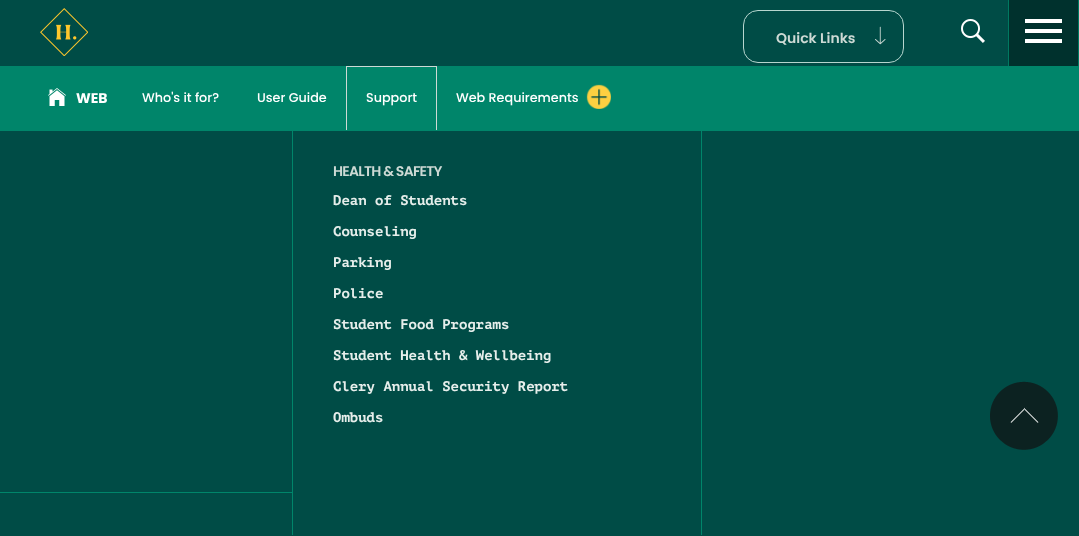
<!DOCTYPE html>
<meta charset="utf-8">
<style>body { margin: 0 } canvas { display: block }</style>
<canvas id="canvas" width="1079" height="536"></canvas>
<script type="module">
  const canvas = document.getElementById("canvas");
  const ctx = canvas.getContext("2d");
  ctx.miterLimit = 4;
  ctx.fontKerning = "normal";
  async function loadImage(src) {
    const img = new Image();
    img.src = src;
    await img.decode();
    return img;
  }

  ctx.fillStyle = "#004c46";
  ctx.fillRect(0, 0, 1079, 536);
  ctx.fillStyle = "#00856a";
  ctx.fillRect(0, 66, 1079, 65);
  ctx.drawImage(await loadImage("img1.png"), 40, 8, 48, 48);
  ctx.beginPath();
  ctx.roundRect(743.5, 10.5, 160, 52, 14.5);
  ctx.strokeStyle = "#b7d6cf";
  ctx.stroke();
  ctx.font = "600 14px Poppins";
  ctx.fillStyle = "#cddad5";
  ctx.fillText("Quick Links", 776, 43);
  ctx.drawImage(await loadImage("img2.png"), 875, 26, 11, 19);
  ctx.drawImage(await loadImage("img3.png"), 961, 19, 24, 24);
  ctx.fillStyle = "#007961";
  ctx.fillRect(1078, 0, 1, 66);
  ctx.fillRect(1008, 0, 1, 66);
  ctx.fillStyle = "#00312d";
  ctx.fillRect(1009, 0, 69, 66);
  ctx.fillStyle = "#ffffff";
  ctx.fillRect(1025, 39, 37, 4);
  ctx.fillRect(1025, 19, 37, 4);
  ctx.fillRect(1025, 29, 37, 4);
  ctx.drawImage(await loadImage("img4.png"), 48, 88, 18, 18);
  ctx.font = "bold 14px Poppins";
  ctx.fillText("WEB", 76, 103);
  ctx.font = "500 12.75px Poppins";
  ctx.fillText("Who's it for?", 142, 102);
  ctx.fillText("User Guide", 257, 102);
  ctx.fillStyle = "#cddad5";
  ctx.fillRect(346, 66, 91, 1);
  ctx.fillRect(436, 66, 1, 64);
  ctx.fillRect(346, 66, 1, 64);
  ctx.fillStyle = "#ffffff";
  ctx.fillText("Support", 366, 102);
  ctx.fillText("Web Requirements", 456, 102);
  ctx.drawImage(await loadImage("img5.png"), 586, 84, 25, 25);
  ctx.fillStyle = "#00856a";
  ctx.fillRect(701, 131, 1, 404);
  ctx.fillRect(292, 131, 1, 404);
  ctx.letterSpacing = "-0.75px";
  ctx.font = "600 14px Poppins";
  ctx.fillStyle = "#cddad5";
  ctx.fillText("HEALTH & SAFETY", 333, 176);
  ctx.letterSpacing = "0px";
  ctx.font = "bold 14px PT Mono";
  ctx.fillStyle = "#e6eeeb";
  ctx.fillText("Dean of Students", 333, 205);
  ctx.fillText("Counseling", 333, 236);
  ctx.fillText("Parking", 333, 267);
  ctx.fillText("Police", 333, 298);
  ctx.fillText("Student Food Programs", 333, 329);
  ctx.fillText("Student Health & Wellbeing", 333, 360);
  ctx.fillText("Clery Annual Security Report", 333, 391);
  ctx.fillText("Ombuds", 333, 422);
  ctx.fillStyle = "#00856a";
  ctx.fillRect(0, 492, 292, 1);
  ctx.drawImage(await loadImage("img6.png"), 990, 381, 68, 69);
</script>
